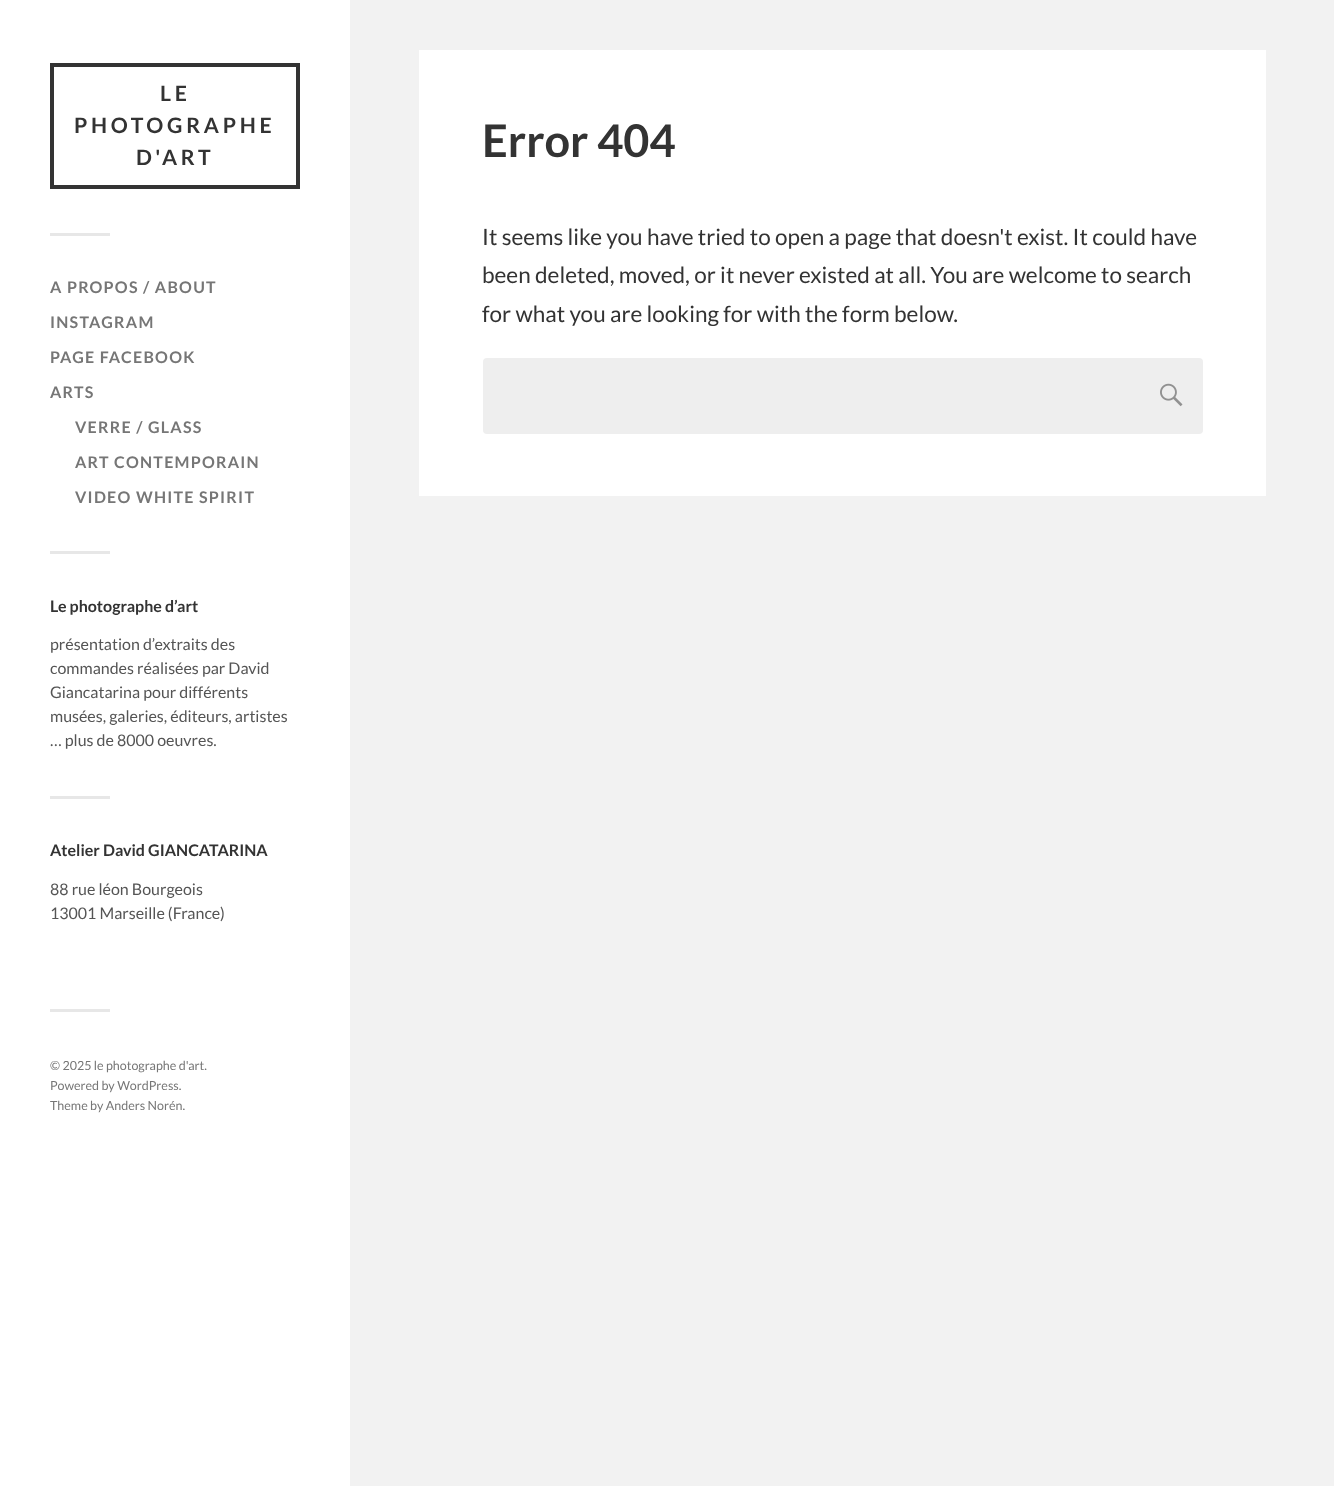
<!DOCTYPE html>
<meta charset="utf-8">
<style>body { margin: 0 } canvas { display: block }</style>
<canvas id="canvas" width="1334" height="1486"></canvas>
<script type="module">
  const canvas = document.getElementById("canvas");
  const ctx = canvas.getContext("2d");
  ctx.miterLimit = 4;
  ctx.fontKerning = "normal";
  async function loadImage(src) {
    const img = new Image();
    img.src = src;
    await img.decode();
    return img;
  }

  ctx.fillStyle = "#f2f2f2";
  ctx.fillRect(0, 0, 1334, 1486);
  ctx.fillStyle = "#ffffff";
  ctx.fillRect(0, 0, 350, 1486);
  ctx.strokeStyle = "#333333";
  ctx.lineWidth = 4;
  ctx.strokeRect(52, 65, 246, 122);
  ctx.letterSpacing = "3.75px";
  ctx.font = "bold 21.25px Lato";
  ctx.fillStyle = "#333333";
  ctx.fillText("LE", 160, 101);
  ctx.fillText("PHOTOGRAPHE", 74, 133);
  ctx.fillText("D'ART", 136, 165);
  ctx.fillStyle = "#e7e7e7";
  ctx.fillRect(50, 233, 60, 3);
  ctx.letterSpacing = "1.25px";
  ctx.font = "bold 16px Lato";
  ctx.fillStyle = "#767676";
  ctx.fillText("A PROPOS / ABOUT", 50, 293);
  ctx.fillText("INSTAGRAM", 50, 328);
  ctx.fillText("PAGE FACEBOOK", 50, 363);
  ctx.fillText("ARTS", 50, 398);
  ctx.fillText("VERRE / GLASS", 75, 433);
  ctx.fillText("ART CONTEMPORAIN", 75, 468);
  ctx.fillText("VIDEO WHITE SPIRIT", 75, 503);
  ctx.fillStyle = "#e7e7e7";
  ctx.fillRect(50, 551, 60, 3);
  ctx.letterSpacing = "0px";
  ctx.fillStyle = "#333333";
  ctx.fillText("Le photographe d’art", 50, 612);
  ctx.font = "16px Lato";
  ctx.fillStyle = "#555555";
  ctx.fillText("présentation d’extraits des", 50, 650);
  ctx.fillText("commandes réalisées par David", 50, 674);
  ctx.fillText("Giancatarina pour différents", 50, 698);
  ctx.fillText("musées, galeries, éditeurs, artistes", 50, 722);
  ctx.fillText("… plus de 8000 oeuvres.", 50, 746);
  ctx.fillStyle = "#e7e7e7";
  ctx.fillRect(50, 796, 60, 3);
  ctx.font = "bold 16px Lato";
  ctx.fillStyle = "#333333";
  ctx.fillText("Atelier David GIANCATARINA", 50, 856);
  ctx.font = "16px Lato";
  ctx.fillStyle = "#555555";
  ctx.fillText("88 rue léon Bourgeois", 50, 895);
  ctx.fillText("13001 Marseille (France)", 50, 919);
  ctx.fillStyle = "#e7e7e7";
  ctx.fillRect(50, 1009, 60, 3);
  ctx.font = "12.5px Lato";
  ctx.fillStyle = "#767676";
  ctx.fillText("© 2025 le photographe d'art.", 50, 1070);
  ctx.fillText("Powered by WordPress.", 50, 1090);
  ctx.fillText("Theme by Anders Norén.", 50, 1110);
  ctx.fillStyle = "#ffffff";
  ctx.fillRect(419, 50, 847, 446);
  ctx.font = "bold 45px Lato";
  ctx.fillStyle = "#333333";
  ctx.fillText("Error 404", 482, 157);
  ctx.font = "22.5px Lato";
  ctx.fillText("It seems like you have tried to open a page that doesn't exist. It could have", 482, 245);
  ctx.fillText("been deleted, moved, or it never existed at all. You are welcome to search", 482, 283);
  ctx.fillText("for what you are looking for with the form below.", 482, 322);
  ctx.fillStyle = "#eeeeee";
  ctx.beginPath();
  ctx.roundRect(483, 358, 720, 76, 4);
  ctx.fill();
  ctx.drawImage(await loadImage("img1.png"), 1160, 383, 23, 24);
</script>
